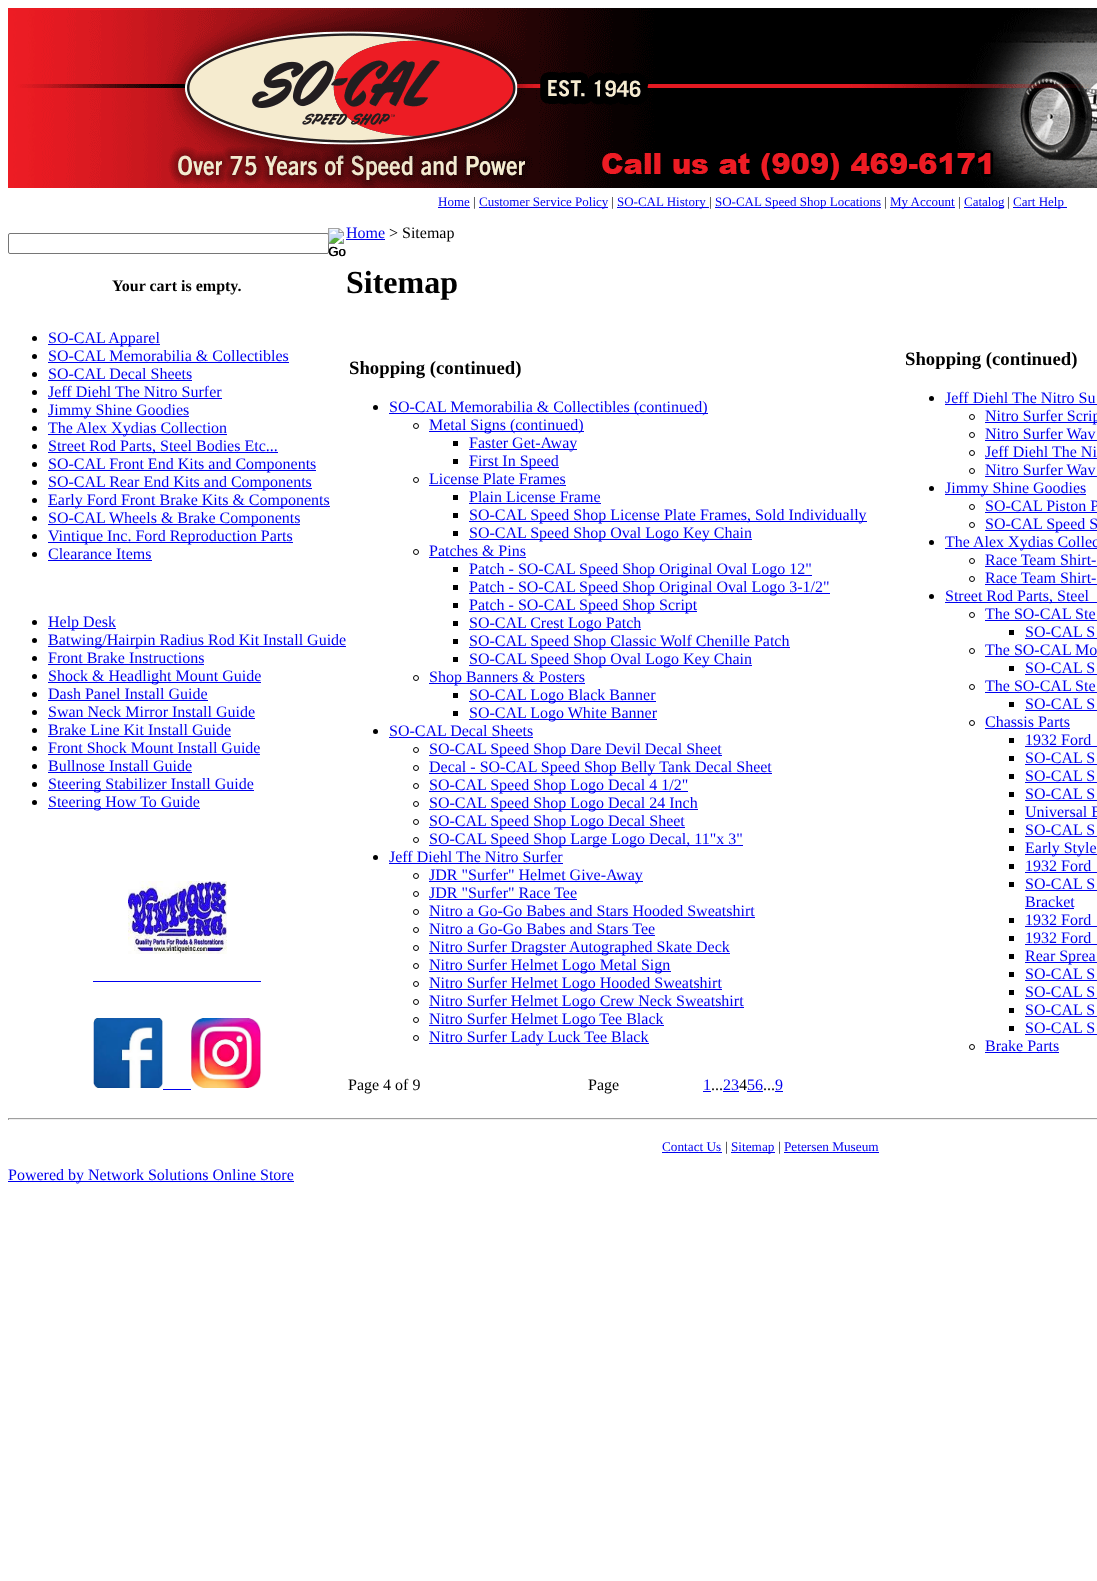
<!DOCTYPE html>
<meta charset="utf-8">
<style>body { margin: 0 } canvas { display: block }</style>
<canvas id="canvas" width="1097" height="1581"></canvas>
<script type="module">
  const canvas = document.getElementById("canvas");
  const ctx = canvas.getContext("2d");
  ctx.miterLimit = 4;
  ctx.fontKerning = "normal";
  async function loadImage(src) {
    const img = new Image();
    img.src = src;
    await img.decode();
    return img;
  }

  ctx.fillStyle = "#ffffff";
  ctx.fillRect(0, 0, 1097, 1581);
  ctx.drawImage(await loadImage("img1.png"), 8, 8, 1089, 180);
  ctx.font = "13px Liberation Serif";
  ctx.fillStyle = "#0000ee";
  ctx.fillText("Home", 438, 206);
  ctx.fillRect(438, 207, 32, 1);
  ctx.fillStyle = "#000000";
  ctx.fillText("|", 473, 206);
  ctx.fillStyle = "#0000ee";
  ctx.fillRect(479, 207, 129, 1);
  ctx.fillText("Customer Service Policy", 479, 206);
  ctx.fillStyle = "#000000";
  ctx.fillText("|", 611, 206);
  ctx.fillStyle = "#0000ee";
  ctx.fillRect(617, 207, 92, 1);
  ctx.fillText("SO-CAL History", 617, 206);
  ctx.fillStyle = "#000000";
  ctx.fillText("|", 709, 206);
  ctx.fillStyle = "#0000ee";
  ctx.fillRect(715, 207, 166, 1);
  ctx.fillText("SO-CAL Speed Shop Locations", 715, 206);
  ctx.fillStyle = "#000000";
  ctx.fillText("|", 884, 206);
  ctx.fillStyle = "#0000ee";
  ctx.fillRect(890, 207, 65, 1);
  ctx.fillText("My Account", 890, 206);
  ctx.fillStyle = "#000000";
  ctx.fillText("|", 958, 206);
  ctx.fillStyle = "#0000ee";
  ctx.fillRect(964, 207, 40, 1);
  ctx.fillText("Catalog", 964, 206);
  ctx.fillStyle = "#000000";
  ctx.fillText("|", 1007, 206);
  ctx.fillStyle = "#0000ee";
  ctx.fillRect(1013, 207, 54, 1);
  ctx.fillText("Cart Help", 1013, 206);
  ctx.beginPath();
  ctx.roundRect(8.5, 233.5, 320, 20, 1.5);
  ctx.strokeStyle = "#767676";
  ctx.stroke();
  ctx.drawImage(await loadImage("img2.png"), 328, 228, 18, 28);
  ctx.font = "13.25px Liberation Sans";
  ctx.fillStyle = "#000000";
  ctx.fillText("Go", 328, 256);
  ctx.font = "bold 16px Liberation Serif";
  ctx.fillText("Your cart is empty.", 112, 291);
  ctx.beginPath();
  ctx.arc(34.5, 338.5, 2.5, 0, Math.PI * 2);
  ctx.fill();
  ctx.fillStyle = "#0000ee";
  ctx.fillRect(48, 344, 112, 1);
  ctx.font = "16px Liberation Serif";
  ctx.fillText("SO-CAL Apparel", 48, 343);
  ctx.fillStyle = "#000000";
  ctx.beginPath();
  ctx.arc(34.5, 356.5, 2.5, 0, Math.PI * 2);
  ctx.fill();
  ctx.fillStyle = "#0000ee";
  ctx.fillText("SO-CAL Memorabilia & Collectibles", 48, 361);
  ctx.fillRect(48, 362, 241, 1);
  ctx.fillStyle = "#000000";
  ctx.beginPath();
  ctx.arc(34.5, 374.5, 2.5, 0, Math.PI * 2);
  ctx.fill();
  ctx.fillStyle = "#0000ee";
  ctx.fillText("SO-CAL Decal Sheets", 48, 379);
  ctx.fillRect(48, 380, 144, 1);
  ctx.fillStyle = "#000000";
  ctx.beginPath();
  ctx.arc(34.5, 392.5, 2.5, 0, Math.PI * 2);
  ctx.fill();
  ctx.fillStyle = "#0000ee";
  ctx.fillText("Jeff Diehl The Nitro Surfer", 48, 397);
  ctx.fillRect(48, 398, 174, 1);
  ctx.fillStyle = "#000000";
  ctx.beginPath();
  ctx.arc(34.5, 410.5, 2.5, 0, Math.PI * 2);
  ctx.fill();
  ctx.fillStyle = "#0000ee";
  ctx.fillRect(48, 416, 141, 1);
  ctx.fillText("Jimmy Shine Goodies", 48, 415);
  ctx.fillStyle = "#000000";
  ctx.beginPath();
  ctx.arc(34.5, 428.5, 2.5, 0, Math.PI * 2);
  ctx.fill();
  ctx.fillStyle = "#0000ee";
  ctx.fillRect(48, 434, 179, 1);
  ctx.fillText("The Alex Xydias Collection", 48, 433);
  ctx.fillStyle = "#000000";
  ctx.beginPath();
  ctx.arc(34.5, 446.5, 2.5, 0, Math.PI * 2);
  ctx.fill();
  ctx.fillStyle = "#0000ee";
  ctx.fillRect(48, 452, 230, 1);
  ctx.fillText("Street Rod Parts, Steel Bodies Etc...", 48, 451);
  ctx.fillStyle = "#000000";
  ctx.beginPath();
  ctx.arc(34.5, 464.5, 2.5, 0, Math.PI * 2);
  ctx.fill();
  ctx.fillStyle = "#0000ee";
  ctx.fillRect(48, 470, 268, 1);
  ctx.fillText("SO-CAL Front End Kits and Components", 48, 469);
  ctx.fillStyle = "#000000";
  ctx.beginPath();
  ctx.arc(34.5, 482.5, 2.5, 0, Math.PI * 2);
  ctx.fill();
  ctx.fillStyle = "#0000ee";
  ctx.fillRect(48, 488, 264, 1);
  ctx.fillText("SO-CAL Rear End Kits and Components", 48, 487);
  ctx.fillStyle = "#000000";
  ctx.beginPath();
  ctx.arc(34.5, 500.5, 2.5, 0, Math.PI * 2);
  ctx.fill();
  ctx.fillStyle = "#0000ee";
  ctx.fillRect(48, 506, 282, 1);
  ctx.fillText("Early Ford Front Brake Kits & Components", 48, 505);
  ctx.fillStyle = "#000000";
  ctx.beginPath();
  ctx.arc(34.5, 518.5, 2.5, 0, Math.PI * 2);
  ctx.fill();
  ctx.fillStyle = "#0000ee";
  ctx.fillRect(48, 524, 252, 1);
  ctx.fillText("SO-CAL Wheels & Brake Components", 48, 523);
  ctx.fillStyle = "#000000";
  ctx.beginPath();
  ctx.arc(34.5, 536.5, 2.5, 0, Math.PI * 2);
  ctx.fill();
  ctx.fillStyle = "#0000ee";
  ctx.fillRect(48, 542, 245, 1);
  ctx.fillText("Vintique Inc. Ford Reproduction Parts", 48, 541);
  ctx.fillStyle = "#000000";
  ctx.beginPath();
  ctx.arc(34.5, 554.5, 2.5, 0, Math.PI * 2);
  ctx.fill();
  ctx.fillStyle = "#0000ee";
  ctx.fillText("Clearance Items", 48, 559);
  ctx.fillRect(48, 560, 104, 1);
  ctx.fillStyle = "#000000";
  ctx.beginPath();
  ctx.arc(34.5, 622.5, 2.5, 0, Math.PI * 2);
  ctx.fill();
  ctx.fillStyle = "#0000ee";
  ctx.fillRect(48, 628, 68, 1);
  ctx.fillText("Help Desk", 48, 627);
  ctx.fillStyle = "#000000";
  ctx.beginPath();
  ctx.arc(34.5, 640.5, 2.5, 0, Math.PI * 2);
  ctx.fill();
  ctx.fillStyle = "#0000ee";
  ctx.fillRect(48, 646, 298, 1);
  ctx.fillText("Batwing/Hairpin Radius Rod Kit Install Guide", 48, 645);
  ctx.fillStyle = "#000000";
  ctx.beginPath();
  ctx.arc(34.5, 658.5, 2.5, 0, Math.PI * 2);
  ctx.fill();
  ctx.fillStyle = "#0000ee";
  ctx.fillText("Front Brake Instructions", 48, 663);
  ctx.fillRect(48, 664, 156, 1);
  ctx.fillStyle = "#000000";
  ctx.beginPath();
  ctx.arc(34.5, 676.5, 2.5, 0, Math.PI * 2);
  ctx.fill();
  ctx.fillStyle = "#0000ee";
  ctx.fillRect(48, 682, 213, 1);
  ctx.fillText("Shock & Headlight Mount Guide", 48, 681);
  ctx.fillStyle = "#000000";
  ctx.beginPath();
  ctx.arc(34.5, 694.5, 2.5, 0, Math.PI * 2);
  ctx.fill();
  ctx.fillStyle = "#0000ee";
  ctx.fillText("Dash Panel Install Guide", 48, 699);
  ctx.fillRect(48, 700, 160, 1);
  ctx.fillStyle = "#000000";
  ctx.beginPath();
  ctx.arc(34.5, 712.5, 2.5, 0, Math.PI * 2);
  ctx.fill();
  ctx.fillStyle = "#0000ee";
  ctx.fillText("Swan Neck Mirror Install Guide", 48, 717);
  ctx.fillRect(48, 718, 207, 1);
  ctx.fillStyle = "#000000";
  ctx.beginPath();
  ctx.arc(34.5, 730.5, 2.5, 0, Math.PI * 2);
  ctx.fill();
  ctx.fillStyle = "#0000ee";
  ctx.fillText("Brake Line Kit Install Guide", 48, 735);
  ctx.fillRect(48, 736, 183, 1);
  ctx.fillStyle = "#000000";
  ctx.beginPath();
  ctx.arc(34.5, 748.5, 2.5, 0, Math.PI * 2);
  ctx.fill();
  ctx.fillStyle = "#0000ee";
  ctx.fillText("Front Shock Mount Install Guide", 48, 753);
  ctx.fillRect(48, 754, 212, 1);
  ctx.fillStyle = "#000000";
  ctx.beginPath();
  ctx.arc(34.5, 766.5, 2.5, 0, Math.PI * 2);
  ctx.fill();
  ctx.fillStyle = "#0000ee";
  ctx.fillText("Bullnose Install Guide", 48, 771);
  ctx.fillRect(48, 772, 144, 1);
  ctx.fillStyle = "#000000";
  ctx.beginPath();
  ctx.arc(34.5, 784.5, 2.5, 0, Math.PI * 2);
  ctx.fill();
  ctx.fillStyle = "#0000ee";
  ctx.fillRect(48, 790, 206, 1);
  ctx.fillText("Steering Stabilizer Install Guide", 48, 789);
  ctx.fillStyle = "#000000";
  ctx.beginPath();
  ctx.arc(34.5, 802.5, 2.5, 0, Math.PI * 2);
  ctx.fill();
  ctx.fillStyle = "#0000ee";
  ctx.fillRect(48, 808, 152, 1);
  ctx.fillText("Steering How To Guide", 48, 807);
  ctx.drawImage(await loadImage("img3.png"), 128, 881, 99, 73);
  ctx.fillRect(93, 981, 168, 1);
  ctx.drawImage(await loadImage("img4.png"), 93, 1018, 70, 70);
  ctx.drawImage(await loadImage("img5.png"), 191, 1018, 70, 70);
  ctx.fillRect(163, 1089, 28, 1);
  ctx.fillText("Home", 346, 238);
  ctx.fillRect(346, 239, 39, 1);
  ctx.fillStyle = "#000000";
  ctx.fillText("> Sitemap", 389, 238);
  ctx.font = "bold 32px Liberation Serif";
  ctx.fillText("Sitemap", 346, 293);
  ctx.font = "bold 18.75px Liberation Serif";
  ctx.fillText("Shopping (continued)", 349, 374);
  ctx.beginPath();
  ctx.arc(375.5, 407.5, 2.5, 0, Math.PI * 2);
  ctx.fill();
  ctx.fillStyle = "#0000ee";
  ctx.fillRect(389, 413, 319, 1);
  ctx.font = "16px Liberation Serif";
  ctx.fillText("SO-CAL Memorabilia & Collectibles (continued)", 389, 412);
  ctx.beginPath();
  ctx.arc(416, 426, 2.5, 0, Math.PI * 2);
  ctx.strokeStyle = "#000000";
  ctx.stroke();
  ctx.fillRect(429, 431, 155, 1);
  ctx.fillText("Metal Signs (continued)", 429, 430);
  ctx.fillStyle = "#000000";
  ctx.fillRect(453, 441, 5, 5);
  ctx.fillStyle = "#0000ee";
  ctx.fillRect(469, 449, 108, 1);
  ctx.fillText("Faster Get-Away", 469, 448);
  ctx.fillStyle = "#000000";
  ctx.fillRect(453, 459, 5, 5);
  ctx.fillStyle = "#0000ee";
  ctx.fillRect(469, 467, 90, 1);
  ctx.fillText("First In Speed", 469, 466);
  ctx.beginPath();
  ctx.arc(416, 480, 2.5, 0, Math.PI * 2);
  ctx.stroke();
  ctx.fillText("License Plate Frames", 429, 484);
  ctx.fillRect(429, 485, 137, 1);
  ctx.fillStyle = "#000000";
  ctx.fillRect(453, 495, 5, 5);
  ctx.fillStyle = "#0000ee";
  ctx.fillText("Plain License Frame", 469, 502);
  ctx.fillRect(469, 503, 132, 1);
  ctx.fillStyle = "#000000";
  ctx.fillRect(453, 513, 5, 5);
  ctx.fillStyle = "#0000ee";
  ctx.fillRect(469, 521, 398, 1);
  ctx.fillText("SO-CAL Speed Shop License Plate Frames, Sold Individually", 469, 520);
  ctx.fillStyle = "#000000";
  ctx.fillRect(453, 531, 5, 5);
  ctx.fillStyle = "#0000ee";
  ctx.fillRect(469, 539, 283, 1);
  ctx.fillText("SO-CAL Speed Shop Oval Logo Key Chain", 469, 538);
  ctx.beginPath();
  ctx.arc(416, 552, 2.5, 0, Math.PI * 2);
  ctx.stroke();
  ctx.fillText("Patches & Pins", 429, 556);
  ctx.fillRect(429, 557, 97, 1);
  ctx.fillStyle = "#000000";
  ctx.fillRect(453, 567, 5, 5);
  ctx.fillStyle = "#0000ee";
  ctx.fillRect(469, 575, 343, 1);
  ctx.fillText("Patch - SO-CAL Speed Shop Original Oval Logo 12\"", 469, 574);
  ctx.fillStyle = "#000000";
  ctx.fillRect(453, 585, 5, 5);
  ctx.fillStyle = "#0000ee";
  ctx.fillRect(469, 593, 361, 1);
  ctx.fillText("Patch - SO-CAL Speed Shop Original Oval Logo 3-1/2\"", 469, 592);
  ctx.fillStyle = "#000000";
  ctx.fillRect(453, 603, 5, 5);
  ctx.fillStyle = "#0000ee";
  ctx.fillRect(469, 611, 228, 1);
  ctx.fillText("Patch - SO-CAL Speed Shop Script", 469, 610);
  ctx.fillStyle = "#000000";
  ctx.fillRect(453, 621, 5, 5);
  ctx.fillStyle = "#0000ee";
  ctx.fillRect(469, 629, 172, 1);
  ctx.fillText("SO-CAL Crest Logo Patch", 469, 628);
  ctx.fillStyle = "#000000";
  ctx.fillRect(453, 639, 5, 5);
  ctx.fillStyle = "#0000ee";
  ctx.fillRect(469, 647, 321, 1);
  ctx.fillText("SO-CAL Speed Shop Classic Wolf Chenille Patch", 469, 646);
  ctx.fillStyle = "#000000";
  ctx.fillRect(453, 657, 5, 5);
  ctx.fillStyle = "#0000ee";
  ctx.fillRect(469, 665, 283, 1);
  ctx.fillText("SO-CAL Speed Shop Oval Logo Key Chain", 469, 664);
  ctx.beginPath();
  ctx.arc(416, 678, 2.5, 0, Math.PI * 2);
  ctx.stroke();
  ctx.fillRect(429, 683, 156, 1);
  ctx.fillText("Shop Banners & Posters", 429, 682);
  ctx.fillStyle = "#000000";
  ctx.fillRect(453, 693, 5, 5);
  ctx.fillStyle = "#0000ee";
  ctx.fillRect(469, 701, 187, 1);
  ctx.fillText("SO-CAL Logo Black Banner", 469, 700);
  ctx.fillStyle = "#000000";
  ctx.fillRect(453, 711, 5, 5);
  ctx.fillStyle = "#0000ee";
  ctx.fillRect(469, 719, 188, 1);
  ctx.fillText("SO-CAL Logo White Banner", 469, 718);
  ctx.fillStyle = "#000000";
  ctx.beginPath();
  ctx.arc(375.5, 731.5, 2.5, 0, Math.PI * 2);
  ctx.fill();
  ctx.fillStyle = "#0000ee";
  ctx.fillText("SO-CAL Decal Sheets", 389, 736);
  ctx.fillRect(389, 737, 144, 1);
  ctx.beginPath();
  ctx.arc(416, 750, 2.5, 0, Math.PI * 2);
  ctx.stroke();
  ctx.fillRect(429, 755, 293, 1);
  ctx.fillText("SO-CAL Speed Shop Dare Devil Decal Sheet", 429, 754);
  ctx.beginPath();
  ctx.arc(416, 768, 2.5, 0, Math.PI * 2);
  ctx.stroke();
  ctx.fillRect(429, 773, 343, 1);
  ctx.fillText("Decal - SO-CAL Speed Shop Belly Tank Decal Sheet", 429, 772);
  ctx.beginPath();
  ctx.arc(416, 786, 2.5, 0, Math.PI * 2);
  ctx.stroke();
  ctx.fillRect(429, 791, 259, 1);
  ctx.fillText("SO-CAL Speed Shop Logo Decal 4 1/2\"", 429, 790);
  ctx.beginPath();
  ctx.arc(416, 804, 2.5, 0, Math.PI * 2);
  ctx.stroke();
  ctx.fillRect(429, 809, 269, 1);
  ctx.fillText("SO-CAL Speed Shop Logo Decal 24 Inch", 429, 808);
  ctx.beginPath();
  ctx.arc(416, 822, 2.5, 0, Math.PI * 2);
  ctx.stroke();
  ctx.fillRect(429, 827, 256, 1);
  ctx.fillText("SO-CAL Speed Shop Logo Decal Sheet", 429, 826);
  ctx.beginPath();
  ctx.arc(416, 840, 2.5, 0, Math.PI * 2);
  ctx.stroke();
  ctx.fillRect(429, 845, 314, 1);
  ctx.fillText("SO-CAL Speed Shop Large Logo Decal, 11\"x 3\"", 429, 844);
  ctx.fillStyle = "#000000";
  ctx.beginPath();
  ctx.arc(375.5, 857.5, 2.5, 0, Math.PI * 2);
  ctx.fill();
  ctx.fillStyle = "#0000ee";
  ctx.fillText("Jeff Diehl The Nitro Surfer", 389, 862);
  ctx.fillRect(389, 863, 174, 1);
  ctx.beginPath();
  ctx.arc(416, 876, 2.5, 0, Math.PI * 2);
  ctx.stroke();
  ctx.fillRect(429, 881, 214, 1);
  ctx.fillText("JDR \"Surfer\" Helmet Give-Away", 429, 880);
  ctx.beginPath();
  ctx.arc(416, 894, 2.5, 0, Math.PI * 2);
  ctx.stroke();
  ctx.fillText("JDR \"Surfer\" Race Tee", 429, 898);
  ctx.fillRect(429, 899, 148, 1);
  ctx.beginPath();
  ctx.arc(416, 912, 2.5, 0, Math.PI * 2);
  ctx.stroke();
  ctx.fillText("Nitro a Go-Go Babes and Stars Hooded Sweatshirt", 429, 916);
  ctx.fillRect(429, 917, 326, 1);
  ctx.beginPath();
  ctx.arc(416, 930, 2.5, 0, Math.PI * 2);
  ctx.stroke();
  ctx.fillText("Nitro a Go-Go Babes and Stars Tee", 429, 934);
  ctx.fillRect(429, 935, 226, 1);
  ctx.beginPath();
  ctx.arc(416, 948, 2.5, 0, Math.PI * 2);
  ctx.stroke();
  ctx.fillRect(429, 953, 301, 1);
  ctx.fillText("Nitro Surfer Dragster Autographed Skate Deck", 429, 952);
  ctx.beginPath();
  ctx.arc(416, 966, 2.5, 0, Math.PI * 2);
  ctx.stroke();
  ctx.fillRect(429, 971, 242, 1);
  ctx.fillText("Nitro Surfer Helmet Logo Metal Sign", 429, 970);
  ctx.beginPath();
  ctx.arc(416, 984, 2.5, 0, Math.PI * 2);
  ctx.stroke();
  ctx.fillRect(429, 989, 293, 1);
  ctx.fillText("Nitro Surfer Helmet Logo Hooded Sweatshirt", 429, 988);
  ctx.beginPath();
  ctx.arc(416, 1002, 2.5, 0, Math.PI * 2);
  ctx.stroke();
  ctx.fillRect(429, 1007, 315, 1);
  ctx.fillText("Nitro Surfer Helmet Logo Crew Neck Sweatshirt", 429, 1006);
  ctx.beginPath();
  ctx.arc(416, 1020, 2.5, 0, Math.PI * 2);
  ctx.stroke();
  ctx.fillRect(429, 1025, 235, 1);
  ctx.fillText("Nitro Surfer Helmet Logo Tee Black", 429, 1024);
  ctx.beginPath();
  ctx.arc(416, 1038, 2.5, 0, Math.PI * 2);
  ctx.stroke();
  ctx.fillRect(429, 1043, 220, 1);
  ctx.fillText("Nitro Surfer Lady Luck Tee Black", 429, 1042);
  ctx.font = "bold 18.75px Liberation Serif";
  ctx.fillStyle = "#000000";
  ctx.fillText("Shopping (continued)", 905, 365);
  ctx.beginPath();
  ctx.arc(931.5, 398.5, 2.5, 0, Math.PI * 2);
  ctx.fill();
  ctx.font = "16px Liberation Serif";
  ctx.fillStyle = "#0000ee";
  ctx.fillText("Jeff Diehl The Nitro Su", 945, 403);
  ctx.fillRect(945, 404, 152, 1);
  ctx.beginPath();
  ctx.arc(972, 417, 2.5, 0, Math.PI * 2);
  ctx.stroke();
  ctx.fillRect(985, 422, 112, 1);
  ctx.fillText("Nitro Surfer Scrip", 985, 421);
  ctx.beginPath();
  ctx.arc(972, 435, 2.5, 0, Math.PI * 2);
  ctx.stroke();
  ctx.fillText("Nitro Surfer Wav", 985, 439);
  ctx.fillRect(985, 440, 112, 1);
  ctx.beginPath();
  ctx.arc(972, 453, 2.5, 0, Math.PI * 2);
  ctx.stroke();
  ctx.fillText("Jeff Diehl The Ni", 985, 457);
  ctx.fillRect(985, 458, 112, 1);
  ctx.beginPath();
  ctx.arc(972, 471, 2.5, 0, Math.PI * 2);
  ctx.stroke();
  ctx.fillText("Nitro Surfer Wav", 985, 475);
  ctx.fillRect(985, 476, 112, 1);
  ctx.fillStyle = "#000000";
  ctx.beginPath();
  ctx.arc(931.5, 488.5, 2.5, 0, Math.PI * 2);
  ctx.fill();
  ctx.fillStyle = "#0000ee";
  ctx.fillRect(945, 494, 141, 1);
  ctx.fillText("Jimmy Shine Goodies", 945, 493);
  ctx.beginPath();
  ctx.arc(972, 507, 2.5, 0, Math.PI * 2);
  ctx.stroke();
  ctx.fillText("SO-CAL Piston P", 985, 511);
  ctx.fillRect(985, 512, 112, 1);
  ctx.beginPath();
  ctx.arc(972, 525, 2.5, 0, Math.PI * 2);
  ctx.stroke();
  ctx.fillRect(985, 530, 112, 1);
  ctx.fillText("SO-CAL Speed S", 985, 529);
  ctx.fillStyle = "#000000";
  ctx.beginPath();
  ctx.arc(931.5, 542.5, 2.5, 0, Math.PI * 2);
  ctx.fill();
  ctx.fillStyle = "#0000ee";
  ctx.fillRect(945, 548, 152, 1);
  ctx.fillText("The Alex Xydias Collec", 945, 547);
  ctx.beginPath();
  ctx.arc(972, 561, 2.5, 0, Math.PI * 2);
  ctx.stroke();
  ctx.fillText("Race Team Shirt-", 985, 565);
  ctx.fillRect(985, 566, 112, 1);
  ctx.beginPath();
  ctx.arc(972, 579, 2.5, 0, Math.PI * 2);
  ctx.stroke();
  ctx.fillText("Race Team Shirt-", 985, 583);
  ctx.fillRect(985, 584, 112, 1);
  ctx.fillStyle = "#000000";
  ctx.beginPath();
  ctx.arc(931.5, 596.5, 2.5, 0, Math.PI * 2);
  ctx.fill();
  ctx.fillStyle = "#0000ee";
  ctx.fillRect(945, 602, 152, 1);
  ctx.fillText("Street Rod Parts, Steel", 945, 601);
  ctx.beginPath();
  ctx.arc(972, 615, 2.5, 0, Math.PI * 2);
  ctx.stroke();
  ctx.fillText("The SO-CAL Ste", 985, 619);
  ctx.fillRect(985, 620, 112, 1);
  ctx.fillStyle = "#000000";
  ctx.fillRect(1009, 630, 5, 5);
  ctx.fillStyle = "#0000ee";
  ctx.fillText("SO-CAL S", 1025, 637);
  ctx.fillRect(1025, 638, 72, 1);
  ctx.beginPath();
  ctx.arc(972, 651, 2.5, 0, Math.PI * 2);
  ctx.stroke();
  ctx.fillText("The SO-CAL Mo", 985, 655);
  ctx.fillRect(985, 656, 112, 1);
  ctx.fillStyle = "#000000";
  ctx.fillRect(1009, 666, 5, 5);
  ctx.fillStyle = "#0000ee";
  ctx.fillText("SO-CAL S", 1025, 673);
  ctx.fillRect(1025, 674, 72, 1);
  ctx.beginPath();
  ctx.arc(972, 687, 2.5, 0, Math.PI * 2);
  ctx.stroke();
  ctx.fillText("The SO-CAL Ste", 985, 691);
  ctx.fillRect(985, 692, 112, 1);
  ctx.fillStyle = "#000000";
  ctx.fillRect(1009, 702, 5, 5);
  ctx.fillStyle = "#0000ee";
  ctx.fillText("SO-CAL S", 1025, 709);
  ctx.fillRect(1025, 710, 72, 1);
  ctx.beginPath();
  ctx.arc(972, 723, 2.5, 0, Math.PI * 2);
  ctx.stroke();
  ctx.fillText("Chassis Parts", 985, 727);
  ctx.fillRect(985, 728, 85, 1);
  ctx.fillStyle = "#000000";
  ctx.fillRect(1009, 738, 5, 5);
  ctx.fillStyle = "#0000ee";
  ctx.fillText("1932 Ford", 1025, 745);
  ctx.fillRect(1025, 746, 72, 1);
  ctx.fillStyle = "#000000";
  ctx.fillRect(1009, 756, 5, 5);
  ctx.fillStyle = "#0000ee";
  ctx.fillText("SO-CAL S", 1025, 763);
  ctx.fillRect(1025, 764, 72, 1);
  ctx.fillStyle = "#000000";
  ctx.fillRect(1009, 774, 5, 5);
  ctx.fillStyle = "#0000ee";
  ctx.fillText("SO-CAL S", 1025, 781);
  ctx.fillRect(1025, 782, 72, 1);
  ctx.fillStyle = "#000000";
  ctx.fillRect(1009, 792, 5, 5);
  ctx.fillStyle = "#0000ee";
  ctx.fillText("SO-CAL S", 1025, 799);
  ctx.fillRect(1025, 800, 72, 1);
  ctx.fillStyle = "#000000";
  ctx.fillRect(1009, 810, 5, 5);
  ctx.fillStyle = "#0000ee";
  ctx.fillText("Universal B", 1025, 817);
  ctx.fillRect(1025, 818, 72, 1);
  ctx.fillStyle = "#000000";
  ctx.fillRect(1009, 828, 5, 5);
  ctx.fillStyle = "#0000ee";
  ctx.fillText("SO-CAL S", 1025, 835);
  ctx.fillRect(1025, 836, 72, 1);
  ctx.fillStyle = "#000000";
  ctx.fillRect(1009, 846, 5, 5);
  ctx.fillStyle = "#0000ee";
  ctx.fillRect(1025, 854, 72, 1);
  ctx.fillText("Early Style", 1025, 853);
  ctx.fillStyle = "#000000";
  ctx.fillRect(1009, 864, 5, 5);
  ctx.fillStyle = "#0000ee";
  ctx.fillText("1932 Ford", 1025, 871);
  ctx.fillRect(1025, 872, 72, 1);
  ctx.fillStyle = "#000000";
  ctx.fillRect(1009, 882, 5, 5);
  ctx.fillStyle = "#0000ee";
  ctx.fillText("SO-CAL S", 1025, 889);
  ctx.fillRect(1025, 890, 72, 1);
  ctx.fillText("Bracket", 1025, 907);
  ctx.fillRect(1025, 908, 49, 1);
  ctx.fillStyle = "#000000";
  ctx.fillRect(1009, 918, 5, 5);
  ctx.fillStyle = "#0000ee";
  ctx.fillText("1932 Ford", 1025, 925);
  ctx.fillRect(1025, 926, 72, 1);
  ctx.fillStyle = "#000000";
  ctx.fillRect(1009, 936, 5, 5);
  ctx.fillStyle = "#0000ee";
  ctx.fillText("1932 Ford", 1025, 943);
  ctx.fillRect(1025, 944, 72, 1);
  ctx.fillStyle = "#000000";
  ctx.fillRect(1009, 954, 5, 5);
  ctx.fillStyle = "#0000ee";
  ctx.fillRect(1025, 962, 72, 1);
  ctx.fillText("Rear Sprea", 1025, 961);
  ctx.fillStyle = "#000000";
  ctx.fillRect(1009, 972, 5, 5);
  ctx.fillStyle = "#0000ee";
  ctx.fillText("SO-CAL S", 1025, 979);
  ctx.fillRect(1025, 980, 72, 1);
  ctx.fillStyle = "#000000";
  ctx.fillRect(1009, 990, 5, 5);
  ctx.fillStyle = "#0000ee";
  ctx.fillText("SO-CAL S", 1025, 997);
  ctx.fillRect(1025, 998, 72, 1);
  ctx.fillStyle = "#000000";
  ctx.fillRect(1009, 1008, 5, 5);
  ctx.fillStyle = "#0000ee";
  ctx.fillText("SO-CAL S", 1025, 1015);
  ctx.fillRect(1025, 1016, 72, 1);
  ctx.fillStyle = "#000000";
  ctx.fillRect(1009, 1026, 5, 5);
  ctx.fillStyle = "#0000ee";
  ctx.fillText("SO-CAL S", 1025, 1033);
  ctx.fillRect(1025, 1034, 72, 1);
  ctx.beginPath();
  ctx.arc(972, 1047, 2.5, 0, Math.PI * 2);
  ctx.stroke();
  ctx.fillText("Brake Parts", 985, 1051);
  ctx.fillRect(985, 1052, 74, 1);
  ctx.fillStyle = "#000000";
  ctx.fillText("Page 4 of 9", 348, 1090);
  ctx.fillText("Page", 588, 1090);
  ctx.fillStyle = "#0000ee";
  ctx.fillText("1", 703, 1090);
  ctx.fillRect(703, 1091, 8, 1);
  ctx.fillStyle = "#000000";
  ctx.fillText("...", 711, 1090);
  ctx.fillStyle = "#0000ee";
  ctx.fillText("23", 723, 1090);
  ctx.fillRect(723, 1091, 16, 1);
  ctx.fillStyle = "#000000";
  ctx.fillText("4", 739, 1090);
  ctx.fillStyle = "#0000ee";
  ctx.fillText("56", 747, 1090);
  ctx.fillRect(747, 1091, 16, 1);
  ctx.fillStyle = "#000000";
  ctx.fillText("...", 763, 1090);
  ctx.fillStyle = "#0000ee";
  ctx.fillText("9", 775, 1090);
  ctx.fillRect(775, 1091, 8, 1);
  ctx.fillStyle = "#9f9f9f";
  ctx.fillRect(8, 1118, 1089, 1);
  ctx.fillStyle = "#eeeeee";
  ctx.fillRect(8, 1119, 1089, 1);
  ctx.fillStyle = "#9f9f9f";
  ctx.fillRect(8, 1118, 1, 2);
  ctx.font = "13.25px Liberation Serif";
  ctx.fillStyle = "#0000ee";
  ctx.fillText("Contact Us", 662, 1151);
  ctx.fillRect(662, 1152, 60, 1);
  ctx.fillStyle = "#000000";
  ctx.fillText("|", 725, 1151);
  ctx.fillStyle = "#0000ee";
  ctx.fillRect(731, 1152, 44, 1);
  ctx.fillText("Sitemap", 731, 1151);
  ctx.fillStyle = "#000000";
  ctx.fillText("|", 778, 1151);
  ctx.fillStyle = "#0000ee";
  ctx.fillText("Petersen Museum", 784, 1151);
  ctx.fillRect(784, 1152, 95, 1);
  ctx.fillRect(8, 1181, 286, 1);
  ctx.font = "16px Liberation Serif";
  ctx.fillText("Powered by Network Solutions Online Store", 8, 1180);
</script>
